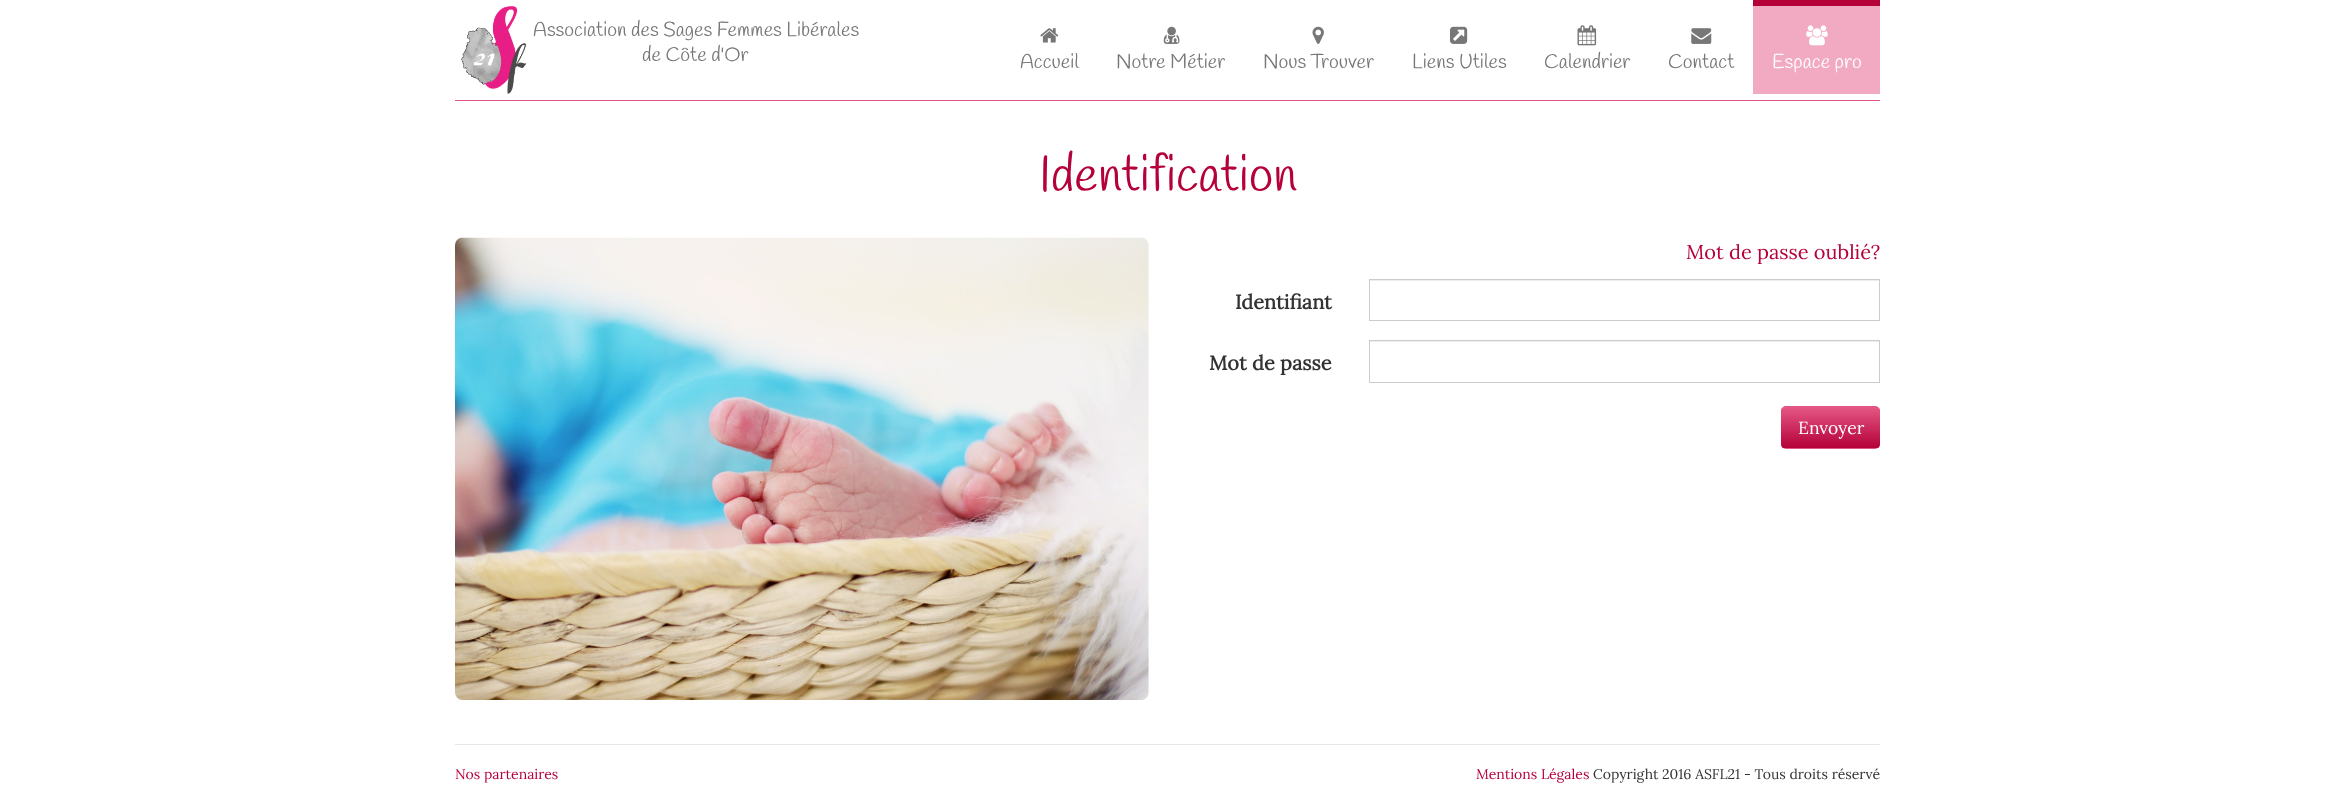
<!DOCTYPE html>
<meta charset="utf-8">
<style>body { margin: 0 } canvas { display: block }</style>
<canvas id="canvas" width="2335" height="786"></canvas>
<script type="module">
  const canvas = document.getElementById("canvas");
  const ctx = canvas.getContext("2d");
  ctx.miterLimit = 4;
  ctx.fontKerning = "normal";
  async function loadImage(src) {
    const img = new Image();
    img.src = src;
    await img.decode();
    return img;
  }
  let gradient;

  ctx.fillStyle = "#ffffff";
  ctx.fillRect(0, 0, 2335, 786);
  ctx.drawImage(await loadImage("img1.png"), 461, 6, 66, 88);
  ctx.font = "20px Handlee";
  ctx.fillStyle = "#777777";
  ctx.fillText("Association des Sages Femmes Libérales", 533, 36);
  ctx.fillText("de Côte d'Or", 642, 61);
  ctx.fillStyle = "#e35582";
  ctx.fillRect(455, 100, 1425, 1);
  ctx.drawImage(await loadImage("img2.png"), 1040, 28, 19, 15);
  ctx.fillStyle = "#777777";
  ctx.fillText("Accueil", 1020, 68);
  ctx.drawImage(await loadImage("img3.png"), 1163, 26, 17, 18);
  ctx.fillText("Notre Métier", 1116, 68);
  ctx.drawImage(await loadImage("img4.png"), 1312, 26, 12, 18);
  ctx.fillText("Nous Trouver", 1263, 68);
  ctx.drawImage(await loadImage("img5.png"), 1450, 26, 18, 18);
  ctx.fillText("Liens Utiles", 1412, 68);
  ctx.drawImage(await loadImage("img6.png"), 1577, 25, 20, 21);
  ctx.fillText("Calendrier", 1544, 68);
  ctx.drawImage(await loadImage("img7.png"), 1691, 28, 21, 16);
  ctx.fillText("Contact", 1668, 68);
  ctx.fillStyle = "#f1aac1";
  ctx.fillRect(1753, 6, 127, 88);
  ctx.fillStyle = "#b5003a";
  ctx.fillRect(1753, 0, 127, 6);
  ctx.drawImage(await loadImage("img8.png"), 1806, 25, 22, 21);
  ctx.fillStyle = "#ffffff";
  ctx.fillText("Espace pro", 1772, 68);
  ctx.font = "50px Handlee";
  ctx.fillStyle = "#b5003a";
  ctx.fillText("Identification", 1039, 191);
  ctx.drawImage(await loadImage("img9.png"), 455, 237, 694, 463);
  ctx.font = "20px Lora";
  ctx.fillText("Mot de passe oublié?", 1686, 259);
  ctx.font = "bold 20px Lora";
  ctx.fillStyle = "#333333";
  ctx.fillText("Identifiant", 1235, 309);
  ctx.fillStyle = "#ececec";
  ctx.fillRect(1370, 280, 509, 1);
  ctx.strokeStyle = "#cccccc";
  ctx.strokeRect(1369.5, 279.5, 510, 41);
  ctx.fillStyle = "#333333";
  ctx.fillText("Mot de passe", 1209, 370);
  ctx.fillStyle = "#ececec";
  ctx.fillRect(1370, 341, 509, 1);
  ctx.strokeRect(1369.5, 340.5, 510, 42);
  ctx.fillStyle = "#e35582";
  ctx.beginPath();
  ctx.roundRect(1781, 406, 99, 43, 5);
  ctx.fill();
  ctx.save();
  ctx.beginPath();
  ctx.roundRect(1781, 406, 99, 43, 5);
  ctx.clip();
  gradient = ctx.createLinearGradient(1831, 408, 1831, 448);
  gradient.addColorStop(0, "#e35582");
  gradient.addColorStop(1, "#b5003a");
  ctx.fillStyle = gradient;
  ctx.fillRect(1781, 408, 99, 40);
  ctx.restore();
  ctx.font = "17.5px Lora";
  ctx.fillStyle = "#ffffff";
  ctx.fillText("Envoyer", 1798, 434);
  ctx.fillStyle = "#e7e7e7";
  ctx.fillRect(455, 744, 1425, 1);
  ctx.font = "14px Lora";
  ctx.fillStyle = "#b5003a";
  ctx.fillText("Nos partenaires", 455, 779);
  ctx.fillText("Mentions Légales", 1476, 779);
  ctx.fillStyle = "#333333";
  ctx.fillText("Copyright 2016 ASFL21 - Tous droits réservé", 1593, 779);
</script>
